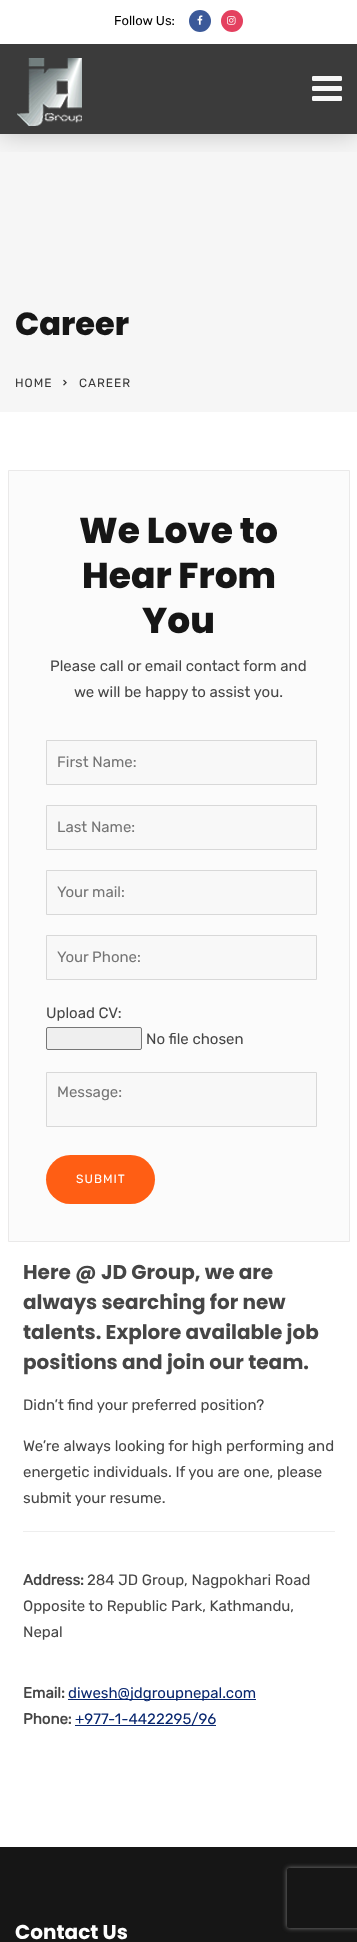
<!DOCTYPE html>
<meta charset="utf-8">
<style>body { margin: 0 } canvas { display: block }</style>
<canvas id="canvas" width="357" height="1942"></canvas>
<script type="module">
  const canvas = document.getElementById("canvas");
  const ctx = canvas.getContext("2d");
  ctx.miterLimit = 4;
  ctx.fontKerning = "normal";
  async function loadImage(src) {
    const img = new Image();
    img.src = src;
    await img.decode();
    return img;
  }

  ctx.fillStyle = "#ffffff";
  ctx.fillRect(0, 0, 357, 1942);
  ctx.fillStyle = "#f6f6f6";
  ctx.fillRect(0, 134, 357, 278);
  ctx.save();
  ctx.beginPath();
  ctx.rect(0, 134, 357, 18);
  ctx.clip();
  ctx.fillStyle = "rgba(5, 6, 6, 0.22)";
  ctx.filter = "blur(13.5px)";
  ctx.beginPath();
  ctx.rect(0, 0, 357, 134);
  ctx.fill();
  ctx.filter = "none";
  ctx.restore();
  ctx.font = "300 13px Rubik";
  ctx.fillStyle = "#000000";
  ctx.fillText("Follow Us:", 114, 25);
  ctx.fillStyle = "#3b5999";
  ctx.beginPath();
  ctx.arc(200, 21, 11, 0, Math.PI * 2);
  ctx.fill();
  ctx.drawImage(await loadImage("img1.png"), 197, 15, 6, 10);
  ctx.fillStyle = "#e4405f";
  ctx.beginPath();
  ctx.arc(232, 21, 11, 0, Math.PI * 2);
  ctx.fill();
  ctx.drawImage(await loadImage("img2.png"), 227, 16, 9, 9);
  ctx.fillStyle = "#3b3b3b";
  ctx.fillRect(0, 44, 357, 90);
  ctx.drawImage(await loadImage("img3.png"), 17, 58, 65, 68);
  ctx.drawImage(await loadImage("img4.png"), 312, 76, 30, 25);
  ctx.font = "800 32px Poppins";
  ctx.fillStyle = "#161616";
  ctx.fillText("Career", 15, 335);
  ctx.letterSpacing = "1px";
  ctx.font = "300 12px Rubik";
  ctx.fillStyle = "#363636";
  ctx.fillText("HOME", 15, 387);
  ctx.drawImage(await loadImage("img5.png"), 63, 379, 4, 7);
  ctx.fillText("CAREER", 79, 387);
  ctx.fillStyle = "#fbfbfb";
  ctx.beginPath();
  ctx.rect(8.5, 470.5, 341, 771);
  ctx.fill();
  ctx.strokeStyle = "#eae9e9";
  ctx.stroke();
  ctx.letterSpacing = "0px";
  ctx.font = "800 36px Poppins";
  ctx.fillStyle = "#161616";
  ctx.fillText("We Love to", 79, 543);
  ctx.fillText("Hear From", 82, 588);
  ctx.fillText("You", 142, 633);
  ctx.font = "300 15px Rubik";
  ctx.fillStyle = "#464646";
  ctx.fillText("Please call or email contact form and", 50, 671);
  ctx.fillText("we will be happy to assist you.", 74, 697);
  ctx.fillStyle = "#f8f8f8";
  ctx.beginPath();
  ctx.rect(46.5, 740.5, 270, 44);
  ctx.fill();
  ctx.strokeStyle = "#d8d8d8";
  ctx.stroke();
  ctx.fillStyle = "#757575";
  ctx.fillText("First Name:", 57, 767);
  ctx.fillStyle = "#f8f8f8";
  ctx.beginPath();
  ctx.rect(46.5, 805.5, 270, 44);
  ctx.fill();
  ctx.stroke();
  ctx.fillStyle = "#757575";
  ctx.fillText("Last Name:", 57, 832);
  ctx.fillStyle = "#f8f8f8";
  ctx.beginPath();
  ctx.rect(46.5, 870.5, 270, 44);
  ctx.fill();
  ctx.stroke();
  ctx.fillStyle = "#757575";
  ctx.fillText("Your mail:", 57, 897);
  ctx.fillStyle = "#f8f8f8";
  ctx.beginPath();
  ctx.rect(46.5, 935.5, 270, 44);
  ctx.fill();
  ctx.stroke();
  ctx.fillStyle = "#757575";
  ctx.fillText("Your Phone:", 57, 962);
  ctx.fillStyle = "#464646";
  ctx.fillText("Upload CV:", 46, 1018);
  ctx.fillStyle = "#efefef";
  ctx.beginPath();
  ctx.roundRect(46.5, 1027.5, 95, 22, 1.5);
  ctx.fill();
  ctx.strokeStyle = "#767676";
  ctx.stroke();
  ctx.fillStyle = "#464646";
  ctx.fillText("No file chosen", 146, 1044);
  ctx.fillStyle = "#f8f8f8";
  ctx.beginPath();
  ctx.rect(46.5, 1072.5, 270, 54);
  ctx.fill();
  ctx.strokeStyle = "#d8d8d8";
  ctx.stroke();
  ctx.fillStyle = "#757575";
  ctx.fillText("Message:", 57, 1097);
  ctx.fillStyle = "#ff5e14";
  ctx.beginPath();
  ctx.roundRect(46, 1155, 109, 49, 24.5);
  ctx.fill();
  ctx.letterSpacing = "1px";
  ctx.font = "300 12px Rubik";
  ctx.fillStyle = "#ffffff";
  ctx.fillText("SUBMIT", 76, 1183);
  ctx.letterSpacing = "0px";
  ctx.font = "bold 20px Poppins";
  ctx.fillStyle = "#464646";
  ctx.fillText("Here @ JD Group, we are", 23, 1279);
  ctx.fillText("always searching for new", 23, 1309);
  ctx.fillText("talents. Explore available job", 23, 1339);
  ctx.fillText("positions and join our team.", 23, 1369);
  ctx.font = "300 15px Rubik";
  ctx.fillText("Didn’t find your preferred position?", 23, 1410);
  ctx.fillText("We’re always looking for high performing and", 23, 1451);
  ctx.fillText("energetic individuals. If you are one, please", 23, 1477);
  ctx.fillText("submit your resume.", 23, 1503);
  ctx.fillStyle = "#eeeeee";
  ctx.fillRect(23, 1531, 312, 1);
  ctx.font = "bold 15px Rubik";
  ctx.fillStyle = "#464646";
  ctx.fillText("Address:", 23, 1585);
  ctx.font = "300 15px Rubik";
  ctx.fillText("284 JD Group, Nagpokhari Road", 87, 1585);
  ctx.fillText("Opposite to Republic Park, Kathmandu,", 23, 1611);
  ctx.fillText("Nepal", 23, 1637);
  ctx.font = "bold 15px Rubik";
  ctx.fillText("Email:", 23, 1698);
  ctx.fillStyle = "#09276f";
  ctx.fillRect(68, 1699, 188, 1);
  ctx.font = "300 15px Rubik";
  ctx.fillText("diwesh@jdgroupnepal.com", 68, 1698);
  ctx.font = "bold 15px Rubik";
  ctx.fillStyle = "#464646";
  ctx.fillText("Phone:", 23, 1724);
  ctx.fillStyle = "#09276f";
  ctx.fillRect(75, 1725, 141, 1);
  ctx.font = "300 15px Rubik";
  ctx.fillText("+977-1-4422295/96", 75, 1724);
  ctx.fillStyle = "#161616";
  ctx.fillRect(0, 1847, 357, 95);
  ctx.font = "bold 20px Poppins";
  ctx.fillStyle = "#ffffff";
  ctx.fillText("Contact Us", 15, 1939);
  ctx.save();
  ctx.beginPath();
  ctx.moveTo(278, 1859);
  ctx.lineTo(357, 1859);
  ctx.lineTo(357, 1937);
  ctx.lineTo(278, 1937);
  ctx.closePath();
  ctx.moveTo(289, 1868);
  ctx.lineTo(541, 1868);
  ctx.bezierCurveTo(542, 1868, 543, 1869, 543, 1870);
  ctx.lineTo(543, 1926);
  ctx.bezierCurveTo(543, 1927, 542, 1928, 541, 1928);
  ctx.lineTo(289, 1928);
  ctx.bezierCurveTo(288, 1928, 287, 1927, 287, 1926);
  ctx.lineTo(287, 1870);
  ctx.bezierCurveTo(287, 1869, 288, 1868, 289, 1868);
  ctx.closePath();
  ctx.clip("evenodd");
  ctx.fillStyle = "#808080";
  ctx.filter = "blur(2.5px)";
  ctx.beginPath();
  ctx.roundRect(287, 1868, 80, 60, 2);
  ctx.fill();
  ctx.filter = "none";
  ctx.restore();
</script>
